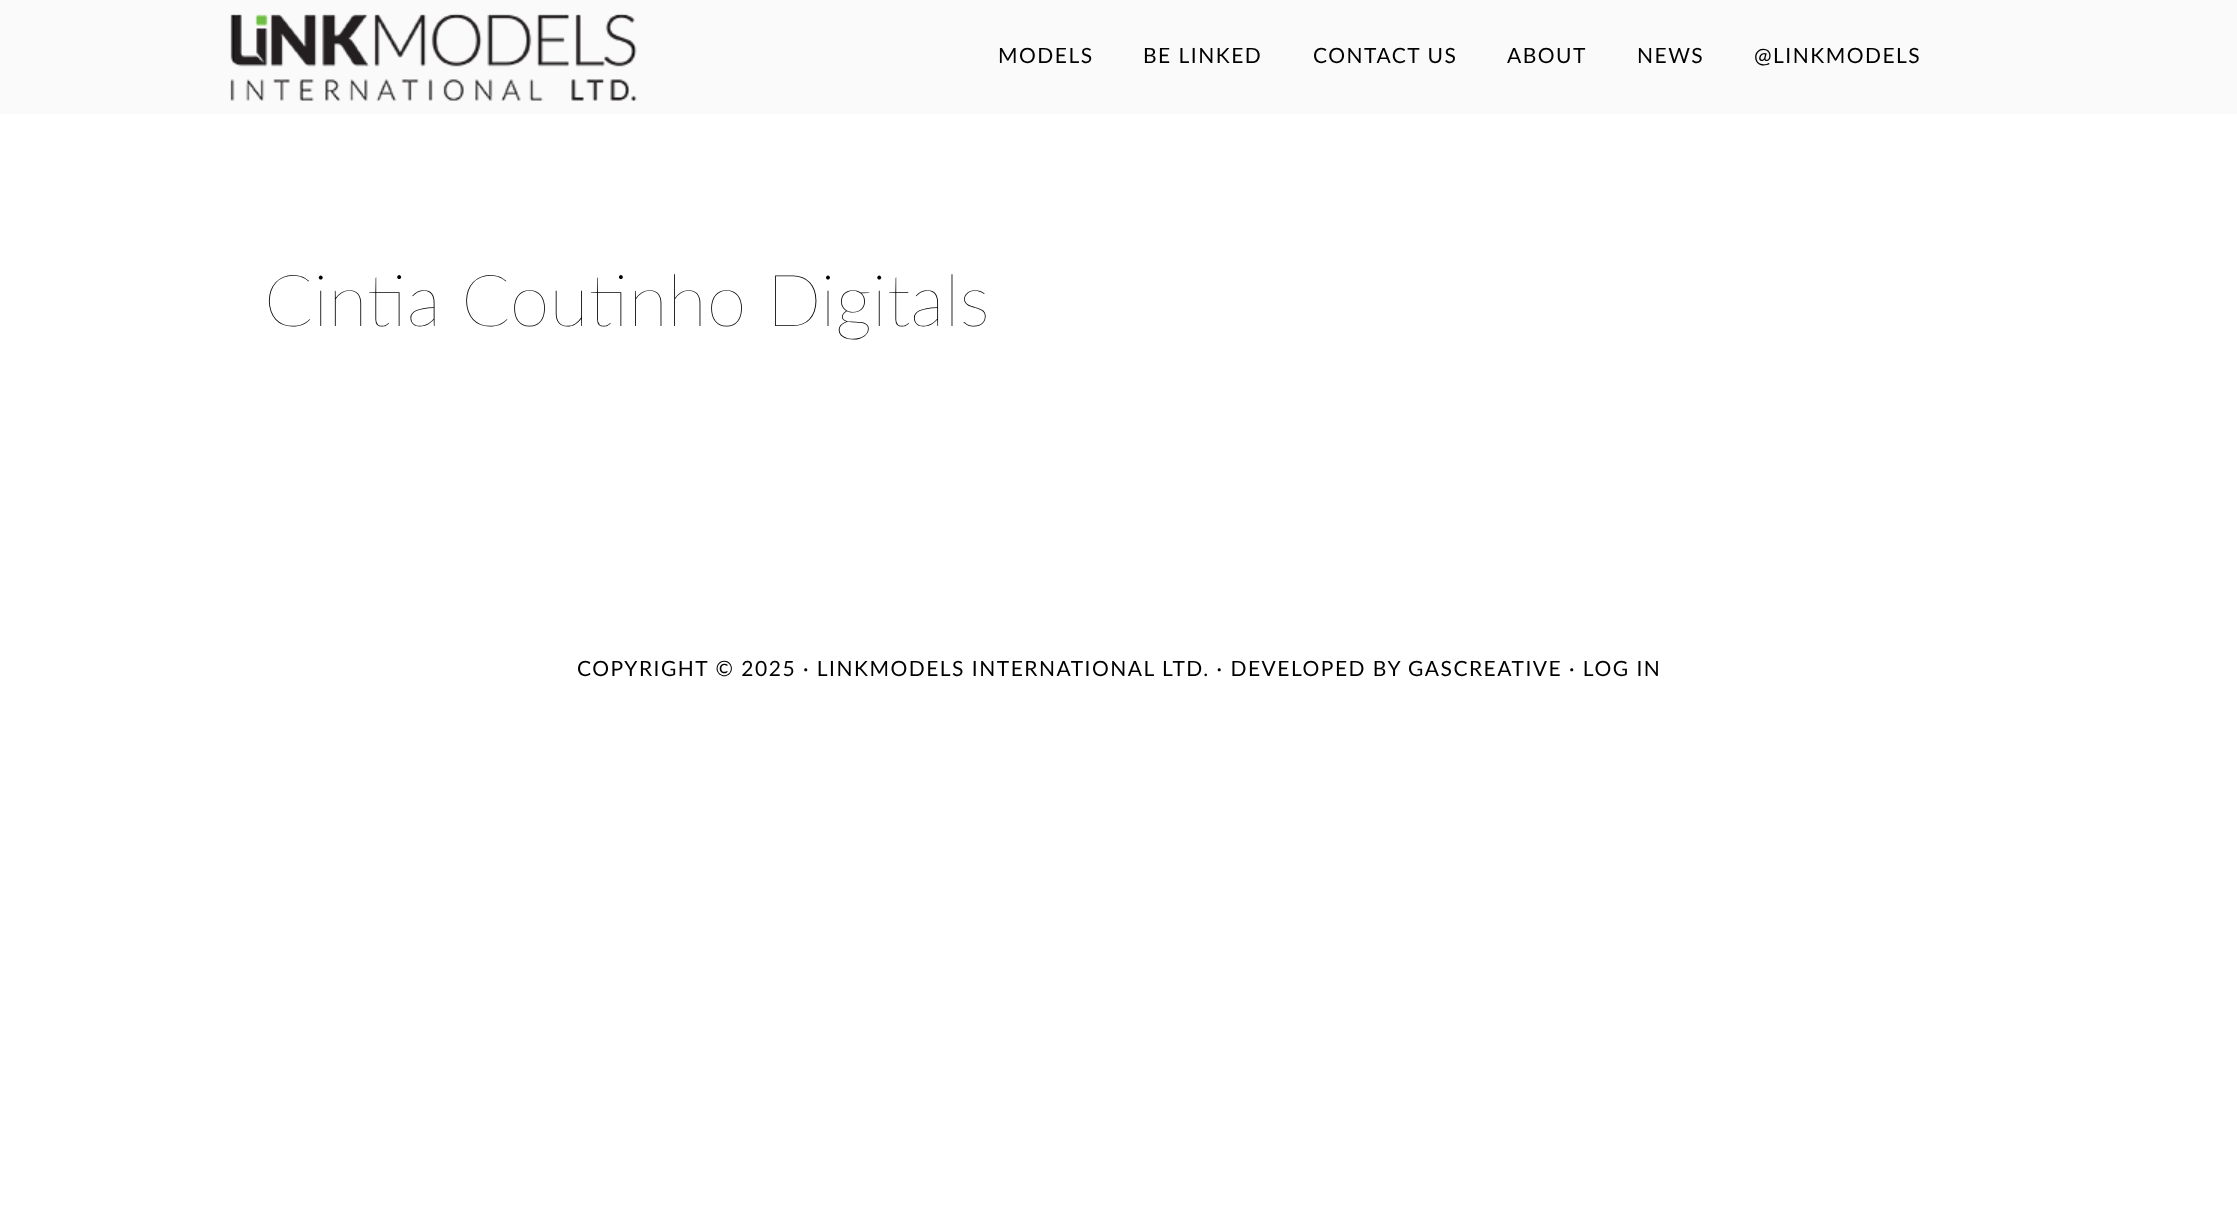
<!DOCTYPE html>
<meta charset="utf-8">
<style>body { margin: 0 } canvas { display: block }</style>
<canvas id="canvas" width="2237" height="1210"></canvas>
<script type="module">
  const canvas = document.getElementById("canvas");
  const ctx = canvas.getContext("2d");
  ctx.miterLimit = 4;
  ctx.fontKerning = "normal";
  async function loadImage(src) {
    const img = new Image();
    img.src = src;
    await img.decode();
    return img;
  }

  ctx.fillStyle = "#ffffff";
  ctx.fillRect(0, 0, 2237, 1210);
  ctx.fillStyle = "#fafafa";
  ctx.fillRect(0, 0, 2237, 114);
  ctx.drawImage(await loadImage("img1.png"), 230, 13, 407, 88);
  ctx.letterSpacing = "1.5px";
  ctx.font = "21px Lato";
  ctx.fillStyle = "#000000";
  ctx.fillText("MODELS", 998, 63);
  ctx.fillText("BE LINKED", 1143, 63);
  ctx.fillText("CONTACT US", 1313, 63);
  ctx.fillText("ABOUT", 1507, 63);
  ctx.fillText("NEWS", 1637, 63);
  ctx.fillText("@LINKMODELS", 1754, 63);
  ctx.letterSpacing = "0px";
  ctx.font = "200 72px Lato";
  ctx.fillText("Cintia Coutinho Digitals", 264, 326);
  ctx.letterSpacing = "1.5px";
  ctx.font = "21px Lato";
  ctx.fillText("COPYRIGHT © 2025 · LINKMODELS INTERNATIONAL LTD. · DEVELOPED BY GASCREATIVE · LOG IN", 577, 676);
</script>
